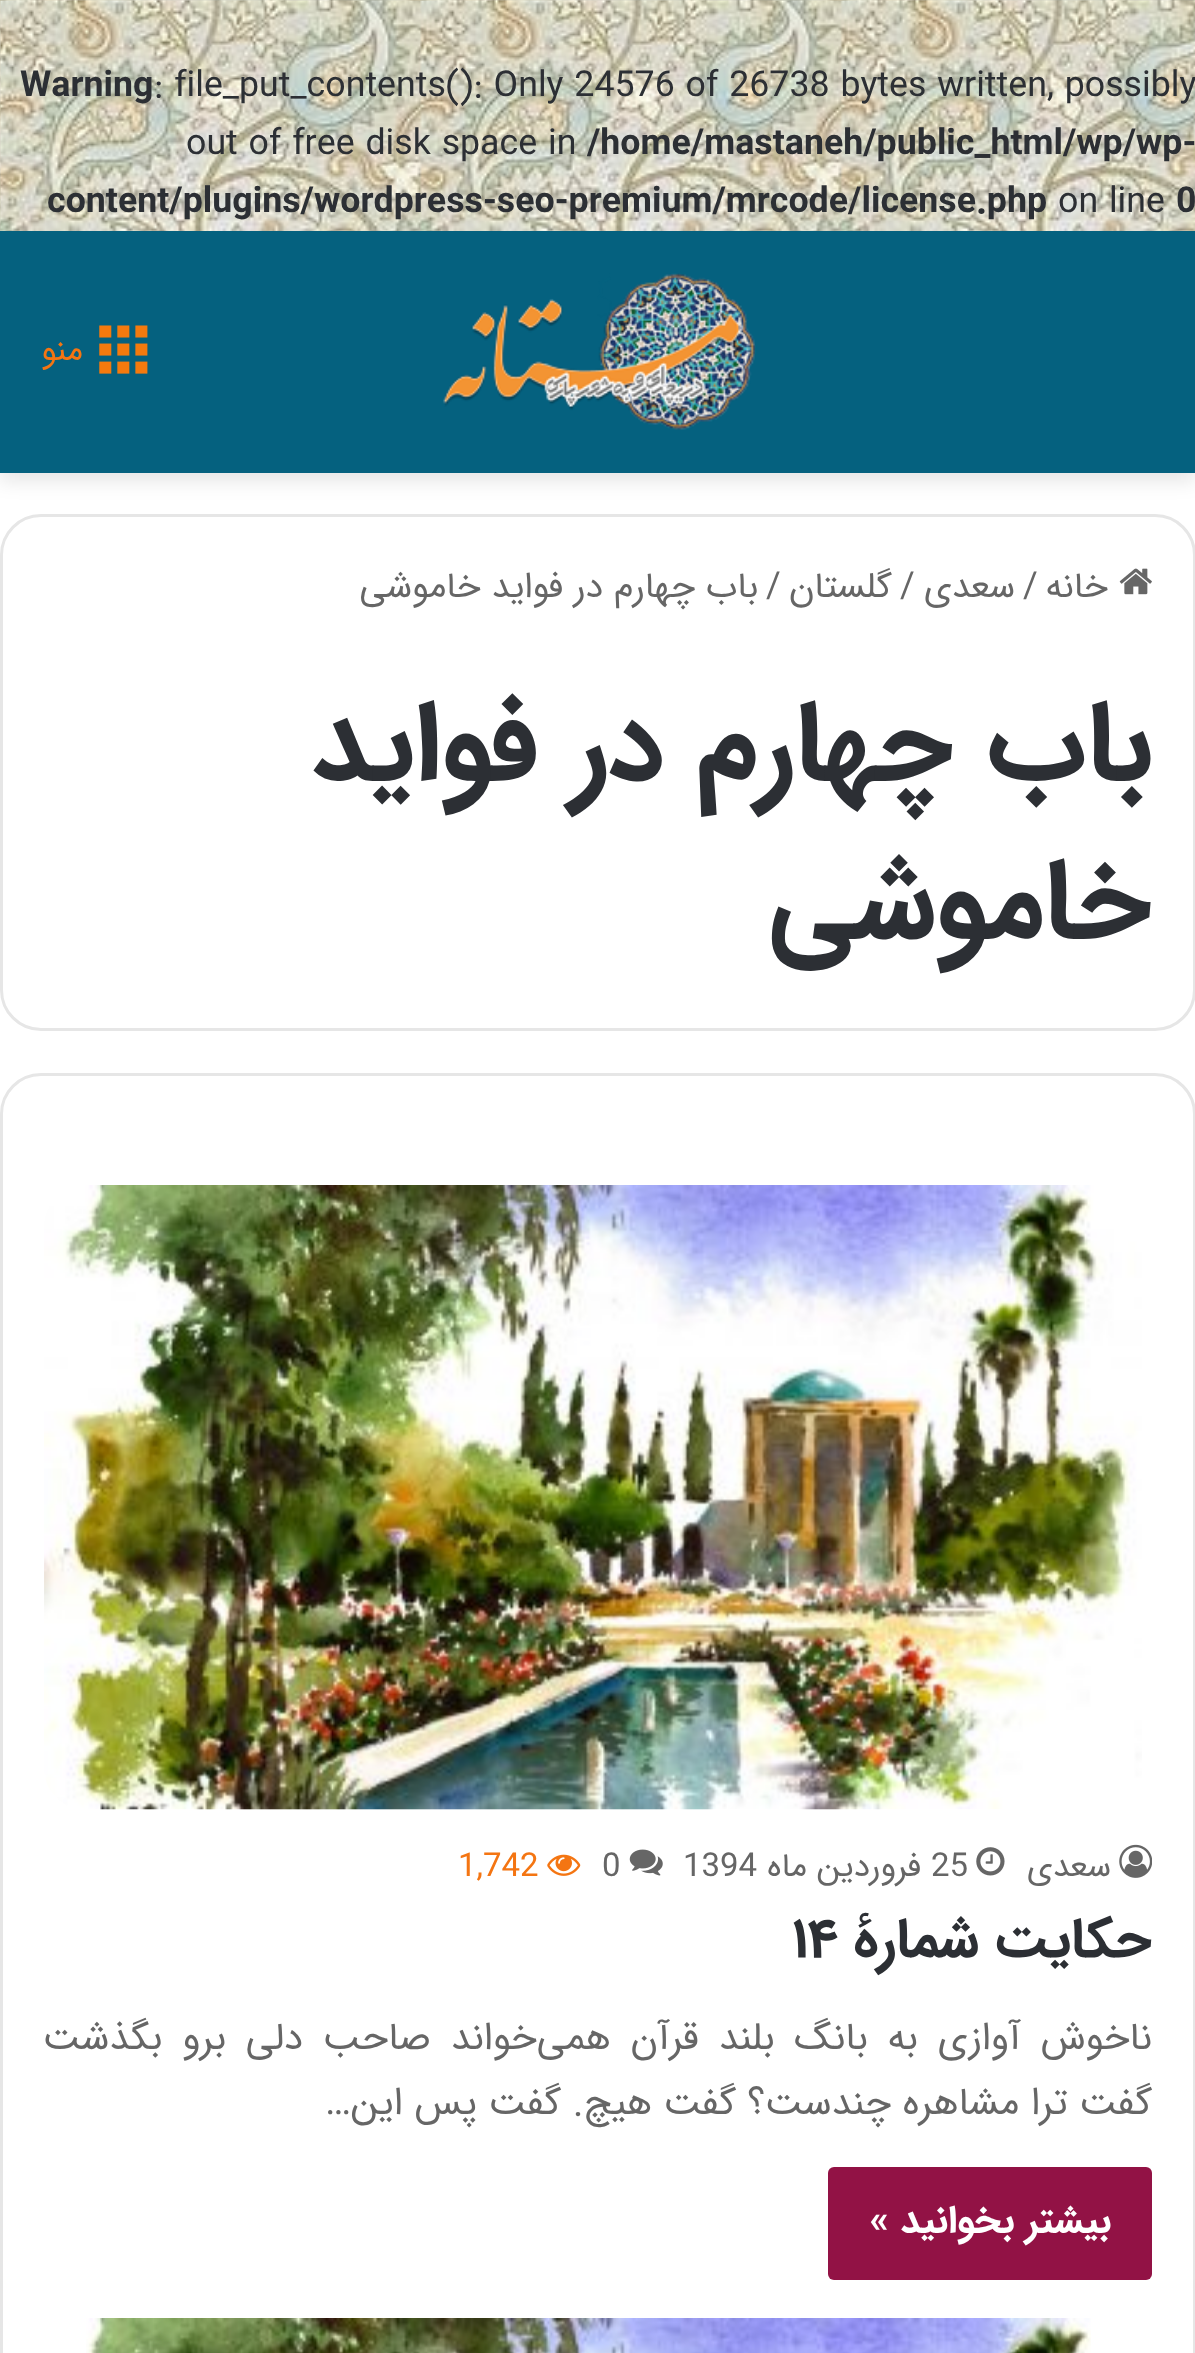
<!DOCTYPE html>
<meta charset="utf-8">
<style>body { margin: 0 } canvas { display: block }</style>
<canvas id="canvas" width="1195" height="2353"></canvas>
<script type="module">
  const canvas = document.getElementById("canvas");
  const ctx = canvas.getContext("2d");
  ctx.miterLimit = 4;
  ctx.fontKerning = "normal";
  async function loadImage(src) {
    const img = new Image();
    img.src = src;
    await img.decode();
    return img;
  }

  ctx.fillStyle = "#ffffff";
  ctx.fillRect(0, 0, 1195, 2353);
  ctx.drawImage(await loadImage("img1.png"), 0, 0, 1195, 231);
  ctx.font = "bold 35.75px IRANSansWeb";
  ctx.fillStyle = "#2c2f34";
  ctx.fillText("Warning", 20, 96);
  ctx.font = "35.75px IRANSansWeb";
  ctx.fillText(": file_put_contents(): Only 24576 of 26738 bytes written, possibly", 154, 96);
  ctx.fillText("out of free disk space in", 186, 154);
  ctx.font = "bold 35.75px IRANSansWeb";
  ctx.fillText("/home/mastaneh/public_html/wp/wp-", 587, 154);
  ctx.fillText("content/plugins/wordpress-seo-premium/mrcode/license.php", 47, 212);
  ctx.font = "35.75px IRANSansWeb";
  ctx.fillText("on line", 1058, 212);
  ctx.font = "bold 35.75px IRANSansWeb";
  ctx.fillText("0", 1176, 212);
  ctx.save();
  ctx.beginPath();
  ctx.rect(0, 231, 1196, 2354);
  ctx.clip();
  ctx.fillStyle = "rgba(0, 0, 0, 0.1)";
  ctx.filter = "blur(9.5px)";
  ctx.beginPath();
  ctx.rect(0, 239, 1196, 242);
  ctx.fill();
  ctx.filter = "none";
  ctx.restore();
  ctx.fillStyle = "#05617f";
  ctx.fillRect(0, 231, 1195, 242);
  ctx.direction = "rtl";
  ctx.font = "33px IRANSansWeb";
  ctx.fillStyle = "#f47512";
  ctx.fillText("منو", 83, 360);
  ctx.drawImage(await loadImage("img2.png"), 99, 325, 49, 49);
  ctx.drawImage(await loadImage("img3.png"), 443, 273, 313, 157);
  ctx.beginPath();
  ctx.roundRect(1.5, 515.5, 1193, 514, 39.5);
  ctx.strokeStyle = "#e6e6e6";
  ctx.lineWidth = 3;
  ctx.stroke();
  ctx.font = "35.75px IRANSansWeb";
  ctx.fillStyle = "#666666";
  ctx.fillText("باب چهارم در فواید خاموشی", 758, 597);
  ctx.direction = "ltr";
  ctx.fillText("/", 766, 597);
  ctx.direction = "rtl";
  ctx.fillText("گلستان", 892, 597);
  ctx.direction = "ltr";
  ctx.fillText("/", 900, 597);
  ctx.direction = "rtl";
  ctx.fillText("سعدی", 1015, 597);
  ctx.direction = "ltr";
  ctx.fillText("/", 1023, 597);
  ctx.direction = "rtl";
  ctx.fillText("خانه", 1108, 597);
  ctx.drawImage(await loadImage("img4.png"), 1119, 568, 33, 27);
  ctx.font = "bold 112.75px IRANSansWeb";
  ctx.fillStyle = "#2c2f34";
  ctx.fillText("باب چهارم در فواید", 1152, 778);
  ctx.fillText("خاموشی", 1152, 936);
  ctx.beginPath();
  ctx.roundRect(1.5, 1074.5, 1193, 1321, 39.5);
  ctx.stroke();
  ctx.drawImage(await loadImage("img5.png"), 44, 1185, 1098, 625);
  ctx.direction = "ltr";
  ctx.font = "33px IRANSansWeb";
  ctx.fillStyle = "#f47512";
  ctx.fillText("1,742", 458, 1876);
  ctx.drawImage(await loadImage("img6.png"), 547, 1854, 34, 22);
  ctx.fillStyle = "#666666";
  ctx.fillText("0", 602, 1876);
  ctx.drawImage(await loadImage("img7.png"), 629, 1849, 34, 27);
  ctx.fillText("1394", 683, 1876);
  ctx.direction = "rtl";
  ctx.fillText("فروردین ماه", 921, 1876);
  ctx.direction = "ltr";
  ctx.fillText("25", 931, 1876);
  ctx.drawImage(await loadImage("img8.png"), 976, 1847, 29, 29);
  ctx.direction = "rtl";
  ctx.fillText("سعدی", 1111, 1876);
  ctx.drawImage(await loadImage("img9.png"), 1119, 1844, 33, 34);
  ctx.direction = "ltr";
  ctx.font = "bold 55px IRANSansWeb";
  ctx.fillStyle = "#2c2f34";
  ctx.fillText("۱۴", 792, 1956);
  ctx.direction = "rtl";
  ctx.fillText("حکایت شمارهٔ", 1152, 1956);
  ctx.wordSpacing = "8.25px";
  ctx.font = "38.5px IRANSansWeb";
  ctx.fillStyle = "#666666";
  ctx.fillText("ناخوش آوازی به بانگ بلند قرآن همی‌خواند صاحب دلی برو بگذشت", 1152, 2049);
  ctx.wordSpacing = "0px";
  ctx.fillText("گفت ترا مشاهره چندست؟ گفت هیچ. گفت پس این…", 1152, 2114);
  ctx.fillStyle = "#921245";
  ctx.beginPath();
  ctx.roundRect(828, 2167, 324, 113, 6);
  ctx.fill();
  ctx.font = "bold 38.5px IRANSansWeb";
  ctx.fillStyle = "#ffffff";
  ctx.fillText("بیشتر بخوانید »", 1111, 2232);
  ctx.drawImage(await loadImage("img10.png"), 86, 2318, 1005, 35);
</script>
